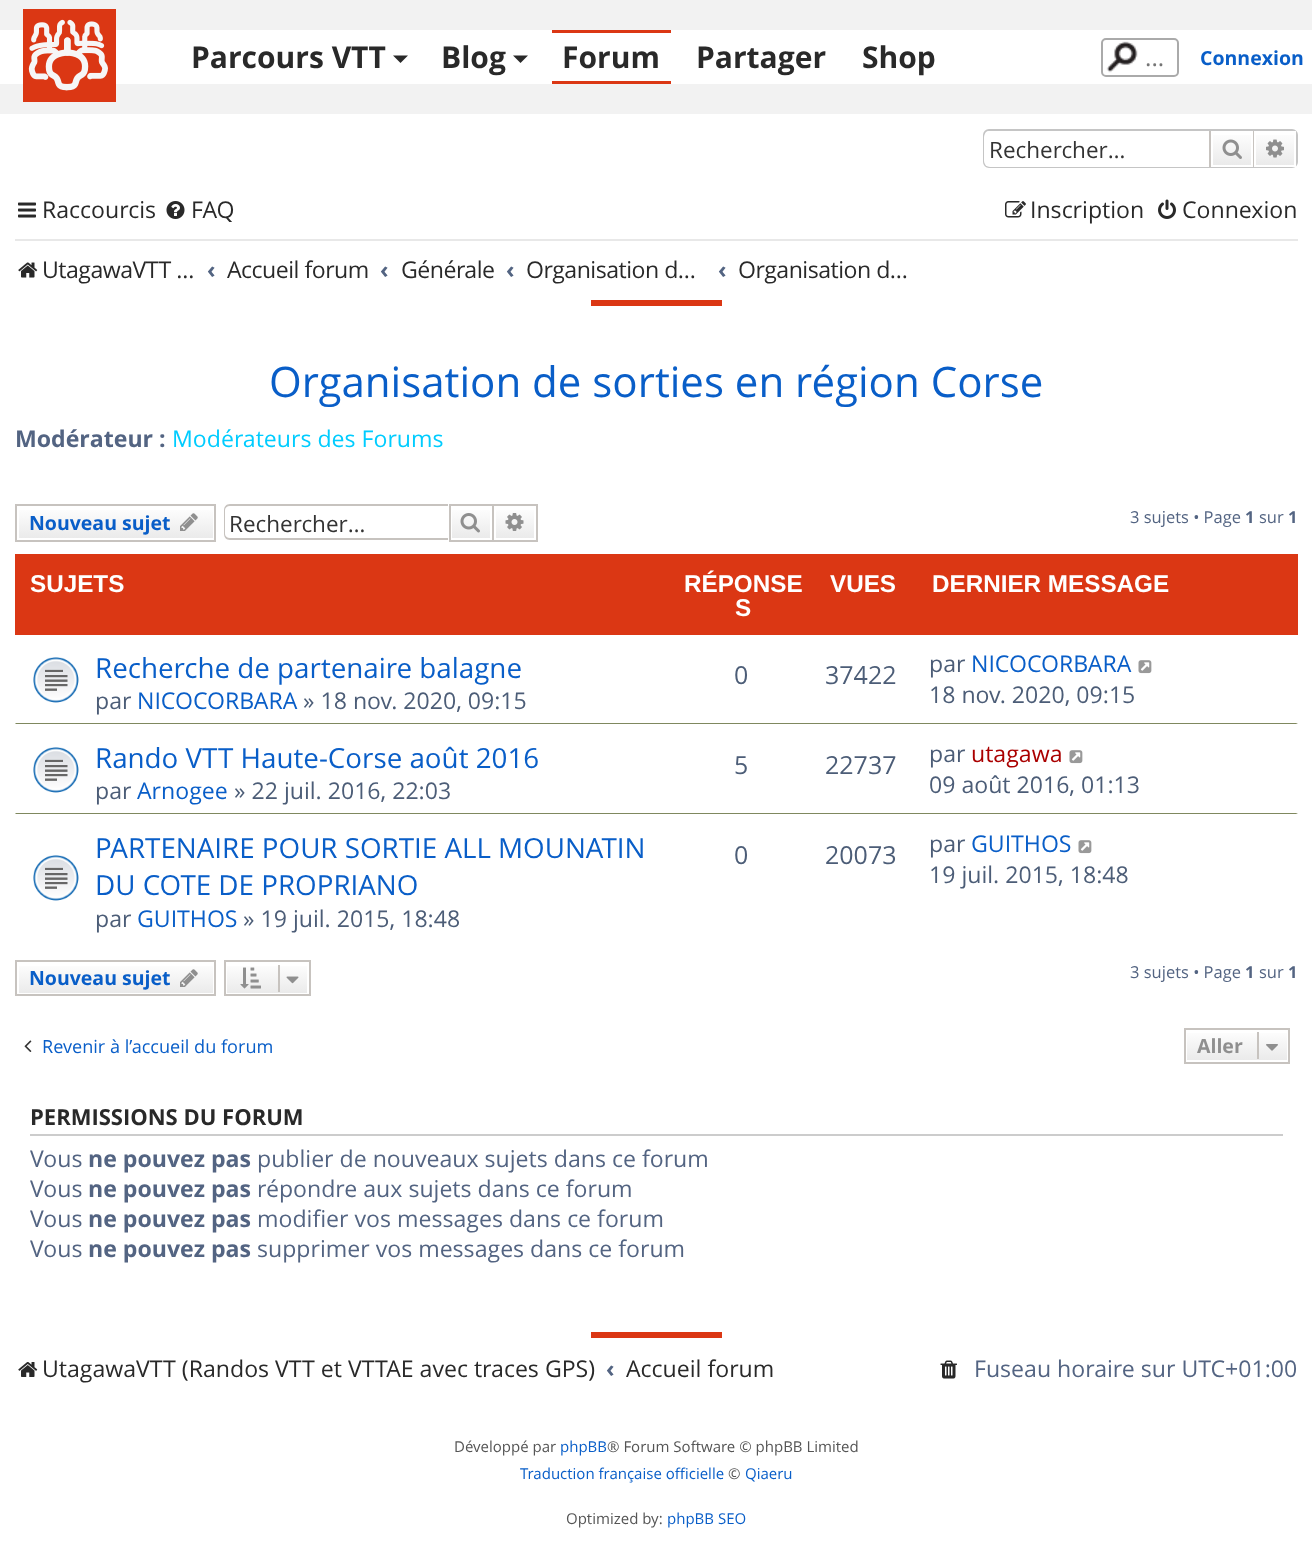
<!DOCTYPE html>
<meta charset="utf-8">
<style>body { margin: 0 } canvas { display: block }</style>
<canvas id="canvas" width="1312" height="1544"></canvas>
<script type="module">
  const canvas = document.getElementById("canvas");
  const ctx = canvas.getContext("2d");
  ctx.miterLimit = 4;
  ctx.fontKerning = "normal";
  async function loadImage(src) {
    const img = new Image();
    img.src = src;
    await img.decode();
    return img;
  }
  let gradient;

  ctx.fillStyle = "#ffffff";
  ctx.fillRect(0, 0, 1312, 1544);
  ctx.fillStyle = "#f2f2f2";
  ctx.fillRect(0, 0, 1312, 114);
  ctx.fillStyle = "#ffffff";
  ctx.fillRect(0, 30, 1312, 54);
  ctx.drawImage(await loadImage("img1.png"), 23, 9, 93, 93);
  ctx.font = "bold 30px Open Sans";
  ctx.fillStyle = "#292929";
  ctx.fillText("Parcours VTT", 191, 68);
  ctx.beginPath();
  ctx.moveTo(393, 55.5);
  ctx.lineTo(408, 55.5);
  ctx.lineTo(400.5, 63);
  ctx.closePath();
  ctx.fill();
  ctx.fillText("Blog", 441, 68);
  ctx.beginPath();
  ctx.moveTo(513, 55.5);
  ctx.lineTo(528, 55.5);
  ctx.lineTo(520.5, 63);
  ctx.closePath();
  ctx.fill();
  ctx.fillStyle = "#db3714";
  ctx.fillRect(552, 30, 119, 3);
  ctx.fillRect(552, 81, 119, 3);
  ctx.fillStyle = "#292929";
  ctx.fillText("Forum", 562, 68);
  ctx.fillText("Partager", 696, 68);
  ctx.fillText("Shop", 862, 68);
  ctx.drawImage(await loadImage("img2.png"), 1106, 41, 32, 32);
  ctx.beginPath();
  ctx.roundRect(1102, 39, 76, 37, 4);
  ctx.strokeStyle = "#aaaaaa";
  ctx.lineWidth = 2;
  ctx.stroke();
  ctx.font = "24px Open Sans";
  ctx.fillStyle = "#757575";
  ctx.fillText("...", 1145, 66);
  ctx.font = "bold 19.5px Open Sans";
  ctx.fillStyle = "#095ec8";
  ctx.fillText("Connexion", 1200, 65);
  ctx.beginPath();
  ctx.roundRect(984, 130, 313, 37, 5);
  ctx.strokeStyle = "#c5c5c5";
  ctx.stroke();
  ctx.fillStyle = "#ffffff";
  ctx.beginPath();
  ctx.roundRect(984, 131, 225, 36, [6, 0, 0, 6]);
  ctx.fill();
  ctx.font = "22.5px Open Sans";
  ctx.fillStyle = "#333333";
  ctx.fillText("Rechercher…", 989, 158);
  gradient = ctx.createLinearGradient(1232, 131, 1232, 167);
  gradient.addColorStop(0, "#ffffff");
  gradient.addColorStop(1, "#e9e9e9");
  ctx.fillStyle = gradient;
  ctx.fillRect(1213, 135, 38, 30);
  ctx.strokeStyle = "#ffffff";
  ctx.strokeRect(1212, 132, 40, 34);
  ctx.fillStyle = "#c7c3bf";
  ctx.fillRect(1253, 131, 1, 36);
  ctx.fillRect(1209, 131, 2, 36);
  ctx.drawImage(await loadImage("img3.png"), 1222, 139, 20, 20);
  gradient = ctx.createLinearGradient(1275, 131, 1275, 167);
  gradient.addColorStop(0, "#ffffff");
  gradient.addColorStop(1, "#e9e9e9");
  ctx.fillStyle = gradient;
  ctx.fillRect(1256, 135, 38, 30);
  ctx.strokeRect(1255, 132, 40, 34);
  ctx.drawImage(await loadImage("img4.png"), 1266, 139, 18, 19);
  ctx.drawImage(await loadImage("img5.png"), 18, 202, 18, 16);
  ctx.font = "23.1px Open Sans";
  ctx.fillStyle = "#292929";
  ctx.fillText("Raccourcis", 42, 218);
  ctx.drawImage(await loadImage("img6.png"), 166, 201, 19, 18);
  ctx.fillText("FAQ", 191, 218);
  ctx.drawImage(await loadImage("img7.png"), 1005, 201, 21, 17);
  ctx.fillText("Inscription", 1030, 218);
  ctx.drawImage(await loadImage("img8.png"), 1158, 199, 18, 20);
  ctx.fillText("Connexion", 1182, 218);
  ctx.fillStyle = "#e8e8e8";
  ctx.fillRect(15, 239, 1283, 2);
  ctx.drawImage(await loadImage("img9.png"), 18, 262, 20, 16);
  ctx.letterSpacing = "-0.5px";
  ctx.fillStyle = "#292929";
  ctx.fillText("UtagawaVTT …", 42, 278);
  ctx.letterSpacing = "0px";
  ctx.font = "bold 23.1px Open Sans";
  ctx.fillStyle = "#536482";
  ctx.fillText("‹", 207, 278);
  ctx.letterSpacing = "-0.5px";
  ctx.font = "23.1px Open Sans";
  ctx.fillStyle = "#292929";
  ctx.fillText("Accueil forum", 227, 278);
  ctx.letterSpacing = "0px";
  ctx.font = "bold 23.1px Open Sans";
  ctx.fillStyle = "#536482";
  ctx.fillText("‹", 380, 278);
  ctx.letterSpacing = "-0.5px";
  ctx.font = "23.1px Open Sans";
  ctx.fillStyle = "#292929";
  ctx.fillText("Générale", 401, 278);
  ctx.letterSpacing = "0px";
  ctx.font = "bold 23.1px Open Sans";
  ctx.fillStyle = "#536482";
  ctx.fillText("‹", 506, 278);
  ctx.letterSpacing = "-0.5px";
  ctx.font = "23.1px Open Sans";
  ctx.fillStyle = "#292929";
  ctx.fillText("Organisation d…", 526, 278);
  ctx.letterSpacing = "0px";
  ctx.font = "bold 23.1px Open Sans";
  ctx.fillStyle = "#536482";
  ctx.fillText("‹", 718, 278);
  ctx.letterSpacing = "-0.5px";
  ctx.font = "23.1px Open Sans";
  ctx.fillStyle = "#292929";
  ctx.fillText("Organisation d…", 738, 278);
  ctx.fillStyle = "#db3714";
  ctx.fillRect(591, 300, 131, 6);
  ctx.letterSpacing = "0px";
  ctx.font = "42px Open Sans";
  ctx.fillStyle = "#095ec8";
  ctx.fillText("Organisation de sorties en région Corse", 269, 397);
  ctx.font = "bold 23.1px Open Sans";
  ctx.fillStyle = "#536482";
  ctx.fillText("Modérateur :", 15, 447);
  ctx.font = "23.1px Open Sans";
  ctx.fillStyle = "#00ccff";
  ctx.fillText("Modérateurs des Forums", 172, 447);
  gradient = ctx.createLinearGradient(116, 506, 116, 540);
  gradient.addColorStop(0, "#ffffff");
  gradient.addColorStop(1, "#e9e9e9");
  ctx.fillStyle = gradient;
  ctx.fillRect(19, 510, 194, 28);
  ctx.strokeStyle = "#c7c3bf";
  ctx.strokeRect(16, 505, 199, 36);
  ctx.font = "bold 19.5px Open Sans";
  ctx.fillStyle = "#095ec8";
  ctx.fillText("Nouveau sujet", 29, 530);
  ctx.drawImage(await loadImage("img10.png"), 180, 513, 18, 18);
  ctx.fillStyle = "#c7c3bf";
  ctx.beginPath();
  ctx.moveTo(230, 504);
  ctx.lineTo(448, 504);
  ctx.lineTo(448, 540);
  ctx.lineTo(230, 540);
  ctx.bezierCurveTo(226, 540, 224, 537, 224, 534);
  ctx.lineTo(224, 510);
  ctx.bezierCurveTo(224, 507, 226, 504, 230, 504);
  ctx.closePath();
  ctx.moveTo(230, 506);
  ctx.lineTo(448, 506);
  ctx.lineTo(448, 538);
  ctx.lineTo(230, 538);
  ctx.bezierCurveTo(227, 538, 225, 536, 225, 534);
  ctx.lineTo(225, 510);
  ctx.bezierCurveTo(225, 508, 227, 506, 230, 506);
  ctx.closePath();
  ctx.fill("evenodd");
  ctx.font = "22.5px Open Sans";
  ctx.fillStyle = "#333333";
  ctx.fillText("Rechercher…", 229, 532);
  gradient = ctx.createLinearGradient(471, 506, 471, 540);
  gradient.addColorStop(0, "#ffffff");
  gradient.addColorStop(1, "#e9e9e9");
  ctx.fillStyle = gradient;
  ctx.fillRect(452, 510, 38, 28);
  ctx.strokeRect(450, 505, 43, 36);
  ctx.drawImage(await loadImage("img11.png"), 460, 513, 20, 20);
  gradient = ctx.createLinearGradient(515, 506, 515, 540);
  gradient.addColorStop(0, "#ffffff");
  gradient.addColorStop(1, "#e9e9e9");
  ctx.fillStyle = gradient;
  ctx.fillRect(496, 510, 38, 28);
  ctx.fillStyle = "#c7c3bf";
  ctx.fillRect(494, 504, 43, 2);
  ctx.fillRect(536, 504, 2, 38);
  ctx.fillRect(494, 540, 43, 2);
  ctx.drawImage(await loadImage("img12.png"), 505, 513, 19, 18);
  ctx.font = "16.5px Open Sans";
  ctx.fillStyle = "#536482";
  ctx.fillText("3 sujets • Page", 1130, 523);
  ctx.font = "bold 16.5px Open Sans";
  ctx.fillText("1", 1245, 523);
  ctx.font = "16.5px Open Sans";
  ctx.fillText("sur", 1259, 523);
  ctx.font = "bold 16.5px Open Sans";
  ctx.fillText("1", 1288, 523);
  ctx.fillStyle = "#db3714";
  ctx.fillRect(15, 554, 1283, 81);
  ctx.font = "bold 24.25px Liberation Sans";
  ctx.fillStyle = "#ffffff";
  ctx.fillText("SUJETS", 30, 592);
  ctx.fillText("RÉPONSE", 684, 592);
  ctx.fillText("S", 735, 616);
  ctx.fillText("VUES", 830, 592);
  ctx.fillText("DERNIER MESSAGE", 932, 592);
  ctx.fillStyle = "#7f885e";
  ctx.beginPath();
  ctx.moveTo(1298, 724);
  ctx.lineTo(15, 724);
  ctx.lineTo(16, 723);
  ctx.lineTo(1296, 723);
  ctx.closePath();
  ctx.fill();
  ctx.drawImage(await loadImage("img13.png"), 33, 657, 46, 46);
  ctx.font = "27.75px Open Sans";
  ctx.fillStyle = "#095ec8";
  ctx.fillText("Recherche de partenaire balagne", 95, 678);
  ctx.font = "23.1px Open Sans";
  ctx.fillStyle = "#4c5d77";
  ctx.fillText("par", 95, 709);
  ctx.fillStyle = "#095ec8";
  ctx.fillText("NICOCORBARA", 137, 709);
  ctx.fillStyle = "#4c5d77";
  ctx.fillText("» 18 nov. 2020, 09:15", 303, 709);
  ctx.font = "25px Open Sans";
  ctx.fillText("0", 734, 684);
  ctx.fillText("37422", 825, 684);
  ctx.font = "23.1px Open Sans";
  ctx.fillText("par", 929, 672);
  ctx.fillStyle = "#095ec8";
  ctx.fillText("NICOCORBARA", 971, 672);
  ctx.drawImage(await loadImage("img14.png"), 1138, 660, 14, 14);
  ctx.fillStyle = "#4c5d77";
  ctx.fillText("18 nov. 2020, 09:15", 929, 703);
  ctx.fillStyle = "#7f885e";
  ctx.beginPath();
  ctx.moveTo(1298, 814);
  ctx.lineTo(15, 814);
  ctx.lineTo(16, 813);
  ctx.lineTo(1296, 813);
  ctx.closePath();
  ctx.fill();
  ctx.drawImage(await loadImage("img13.png"), 33, 747, 46, 46);
  ctx.font = "27.75px Open Sans";
  ctx.fillStyle = "#095ec8";
  ctx.fillText("Rando VTT Haute-Corse août 2016", 95, 768);
  ctx.font = "23.1px Open Sans";
  ctx.fillStyle = "#4c5d77";
  ctx.fillText("par", 95, 799);
  ctx.fillStyle = "#095ec8";
  ctx.fillText("Arnogee", 137, 799);
  ctx.fillStyle = "#4c5d77";
  ctx.fillText("» 22 juil. 2016, 22:03", 234, 799);
  ctx.font = "25px Open Sans";
  ctx.fillText("5", 734, 774);
  ctx.fillText("22737", 825, 774);
  ctx.font = "23.1px Open Sans";
  ctx.fillText("par", 929, 762);
  ctx.fillStyle = "#aa0000";
  ctx.fillText("utagawa", 971, 762);
  ctx.drawImage(await loadImage("img14.png"), 1069, 750, 14, 14);
  ctx.fillStyle = "#4c5d77";
  ctx.fillText("09 août 2016, 01:13", 929, 793);
  ctx.drawImage(await loadImage("img13.png"), 33, 855, 46, 46);
  ctx.font = "27.75px Open Sans";
  ctx.fillStyle = "#095ec8";
  ctx.fillText("PARTENAIRE POUR SORTIE ALL MOUNATIN", 95, 858);
  ctx.fillText("DU COTE DE PROPRIANO", 95, 895);
  ctx.font = "23.1px Open Sans";
  ctx.fillStyle = "#4c5d77";
  ctx.fillText("par", 95, 927);
  ctx.fillStyle = "#095ec8";
  ctx.fillText("GUITHOS", 137, 927);
  ctx.fillStyle = "#4c5d77";
  ctx.fillText("» 19 juil. 2015, 18:48", 243, 927);
  ctx.font = "25px Open Sans";
  ctx.fillText("0", 734, 864);
  ctx.fillText("20073", 825, 864);
  ctx.font = "23.1px Open Sans";
  ctx.fillText("par", 929, 852);
  ctx.fillStyle = "#095ec8";
  ctx.fillText("GUITHOS", 971, 852);
  ctx.drawImage(await loadImage("img14.png"), 1078, 840, 14, 14);
  ctx.fillStyle = "#4c5d77";
  ctx.fillText("19 juil. 2015, 18:48", 929, 883);
  gradient = ctx.createLinearGradient(116, 962, 116, 995);
  gradient.addColorStop(0, "#ffffff");
  gradient.addColorStop(1, "#e9e9e9");
  ctx.fillStyle = gradient;
  ctx.fillRect(19, 966, 194, 27);
  ctx.strokeRect(16, 961, 199, 34);
  ctx.font = "bold 19.5px Open Sans";
  ctx.fillStyle = "#095ec8";
  ctx.fillText("Nouveau sujet", 29, 985);
  ctx.drawImage(await loadImage("img15.png"), 180, 969, 18, 18);
  gradient = ctx.createLinearGradient(267, 962, 267, 995);
  gradient.addColorStop(0, "#ffffff");
  gradient.addColorStop(1, "#e9e9e9");
  ctx.fillStyle = gradient;
  ctx.fillRect(227, 966, 80, 27);
  ctx.strokeRect(225, 961, 85, 34);
  ctx.drawImage(await loadImage("img16.png"), 240, 967, 21, 22);
  ctx.fillStyle = "#c7c3bf";
  ctx.fillRect(278, 965, 2, 27);
  ctx.drawImage(await loadImage("img17.png"), 286, 976, 13, 8);
  ctx.font = "16.5px Open Sans";
  ctx.fillStyle = "#536482";
  ctx.fillText("3 sujets • Page", 1130, 978);
  ctx.font = "bold 16.5px Open Sans";
  ctx.fillText("1", 1245, 978);
  ctx.font = "16.5px Open Sans";
  ctx.fillText("sur", 1259, 978);
  ctx.font = "bold 16.5px Open Sans";
  ctx.fillText("1", 1288, 978);
  ctx.drawImage(await loadImage("img18.png"), 24, 1040, 8, 12);
  ctx.font = "18.1px Open Sans";
  ctx.fillStyle = "#095ec8";
  ctx.fillText("Revenir à l’accueil du forum", 42, 1053);
  gradient = ctx.createLinearGradient(1237, 1029, 1237, 1062);
  gradient.addColorStop(0, "#ffffff");
  gradient.addColorStop(1, "#e9e9e9");
  ctx.fillStyle = gradient;
  ctx.fillRect(1187, 1033, 100, 27);
  ctx.strokeRect(1185, 1029, 104, 34);
  ctx.font = "bold 19.5px Open Sans";
  ctx.fillStyle = "#8f8f8f";
  ctx.fillText("Aller", 1197, 1053);
  ctx.fillStyle = "#c7c3bf";
  ctx.fillRect(1257, 1032, 2, 27);
  ctx.drawImage(await loadImage("img19.png"), 1266, 1044, 12, 7);
  ctx.fillStyle = "#cccccc";
  ctx.fillRect(30, 1134, 1253, 2);
  ctx.font = "bold 22px Open Sans";
  ctx.fillStyle = "#292929";
  ctx.fillText("PERMISSIONS DU FORUM", 30, 1125);
  ctx.font = "23.1px Open Sans";
  ctx.fillStyle = "#536482";
  ctx.fillText("Vous", 30, 1167);
  ctx.font = "bold 23.1px Open Sans";
  ctx.fillText("ne pouvez pas", 88, 1167);
  ctx.font = "23.1px Open Sans";
  ctx.fillText("publier de nouveaux sujets dans ce forum", 257, 1167);
  ctx.fillText("Vous", 30, 1197);
  ctx.font = "bold 23.1px Open Sans";
  ctx.fillText("ne pouvez pas", 88, 1197);
  ctx.font = "23.1px Open Sans";
  ctx.fillText("répondre aux sujets dans ce forum", 257, 1197);
  ctx.fillText("Vous", 30, 1227);
  ctx.font = "bold 23.1px Open Sans";
  ctx.fillText("ne pouvez pas", 88, 1227);
  ctx.font = "23.1px Open Sans";
  ctx.fillText("modifier vos messages dans ce forum", 257, 1227);
  ctx.fillText("Vous", 30, 1257);
  ctx.font = "bold 23.1px Open Sans";
  ctx.fillText("ne pouvez pas", 88, 1257);
  ctx.font = "23.1px Open Sans";
  ctx.fillText("supprimer vos messages dans ce forum", 257, 1257);
  ctx.fillStyle = "#db3714";
  ctx.fillRect(591, 1332, 131, 6);
  ctx.drawImage(await loadImage("img20.png"), 18, 1362, 20, 15);
  ctx.fillStyle = "#292929";
  ctx.fillText("UtagawaVTT (Randos VTT et VTTAE avec traces GPS)", 42, 1377);
  ctx.font = "bold 23.1px Open Sans";
  ctx.fillStyle = "#536482";
  ctx.fillText("‹", 606, 1377);
  ctx.font = "23.1px Open Sans";
  ctx.fillStyle = "#292929";
  ctx.fillText("Accueil forum", 626, 1377);
  ctx.drawImage(await loadImage("img21.png"), 940, 1360, 17, 19);
  ctx.fillStyle = "#536482";
  ctx.fillText("Fuseau horaire sur UTC+01:00", 974, 1377);
  ctx.font = "15px Open Sans";
  ctx.fillStyle = "#555555";
  ctx.fillText("Développé par", 454, 1452);
  ctx.fillStyle = "#095ec8";
  ctx.fillText("phpBB", 560, 1452);
  ctx.fillStyle = "#555555";
  ctx.fillText("® Forum Software © phpBB Limited", 607, 1452);
  ctx.fillStyle = "#095ec8";
  ctx.fillText("Traduction française officielle", 520, 1479);
  ctx.fillStyle = "#555555";
  ctx.fillText("©", 728, 1479);
  ctx.fillStyle = "#095ec8";
  ctx.fillText("Qiaeru", 745, 1479);
  ctx.fillStyle = "#555555";
  ctx.fillText("Optimized by:", 566, 1524);
  ctx.fillStyle = "#095ec8";
  ctx.fillText("phpBB SEO", 667, 1524);
</script>
